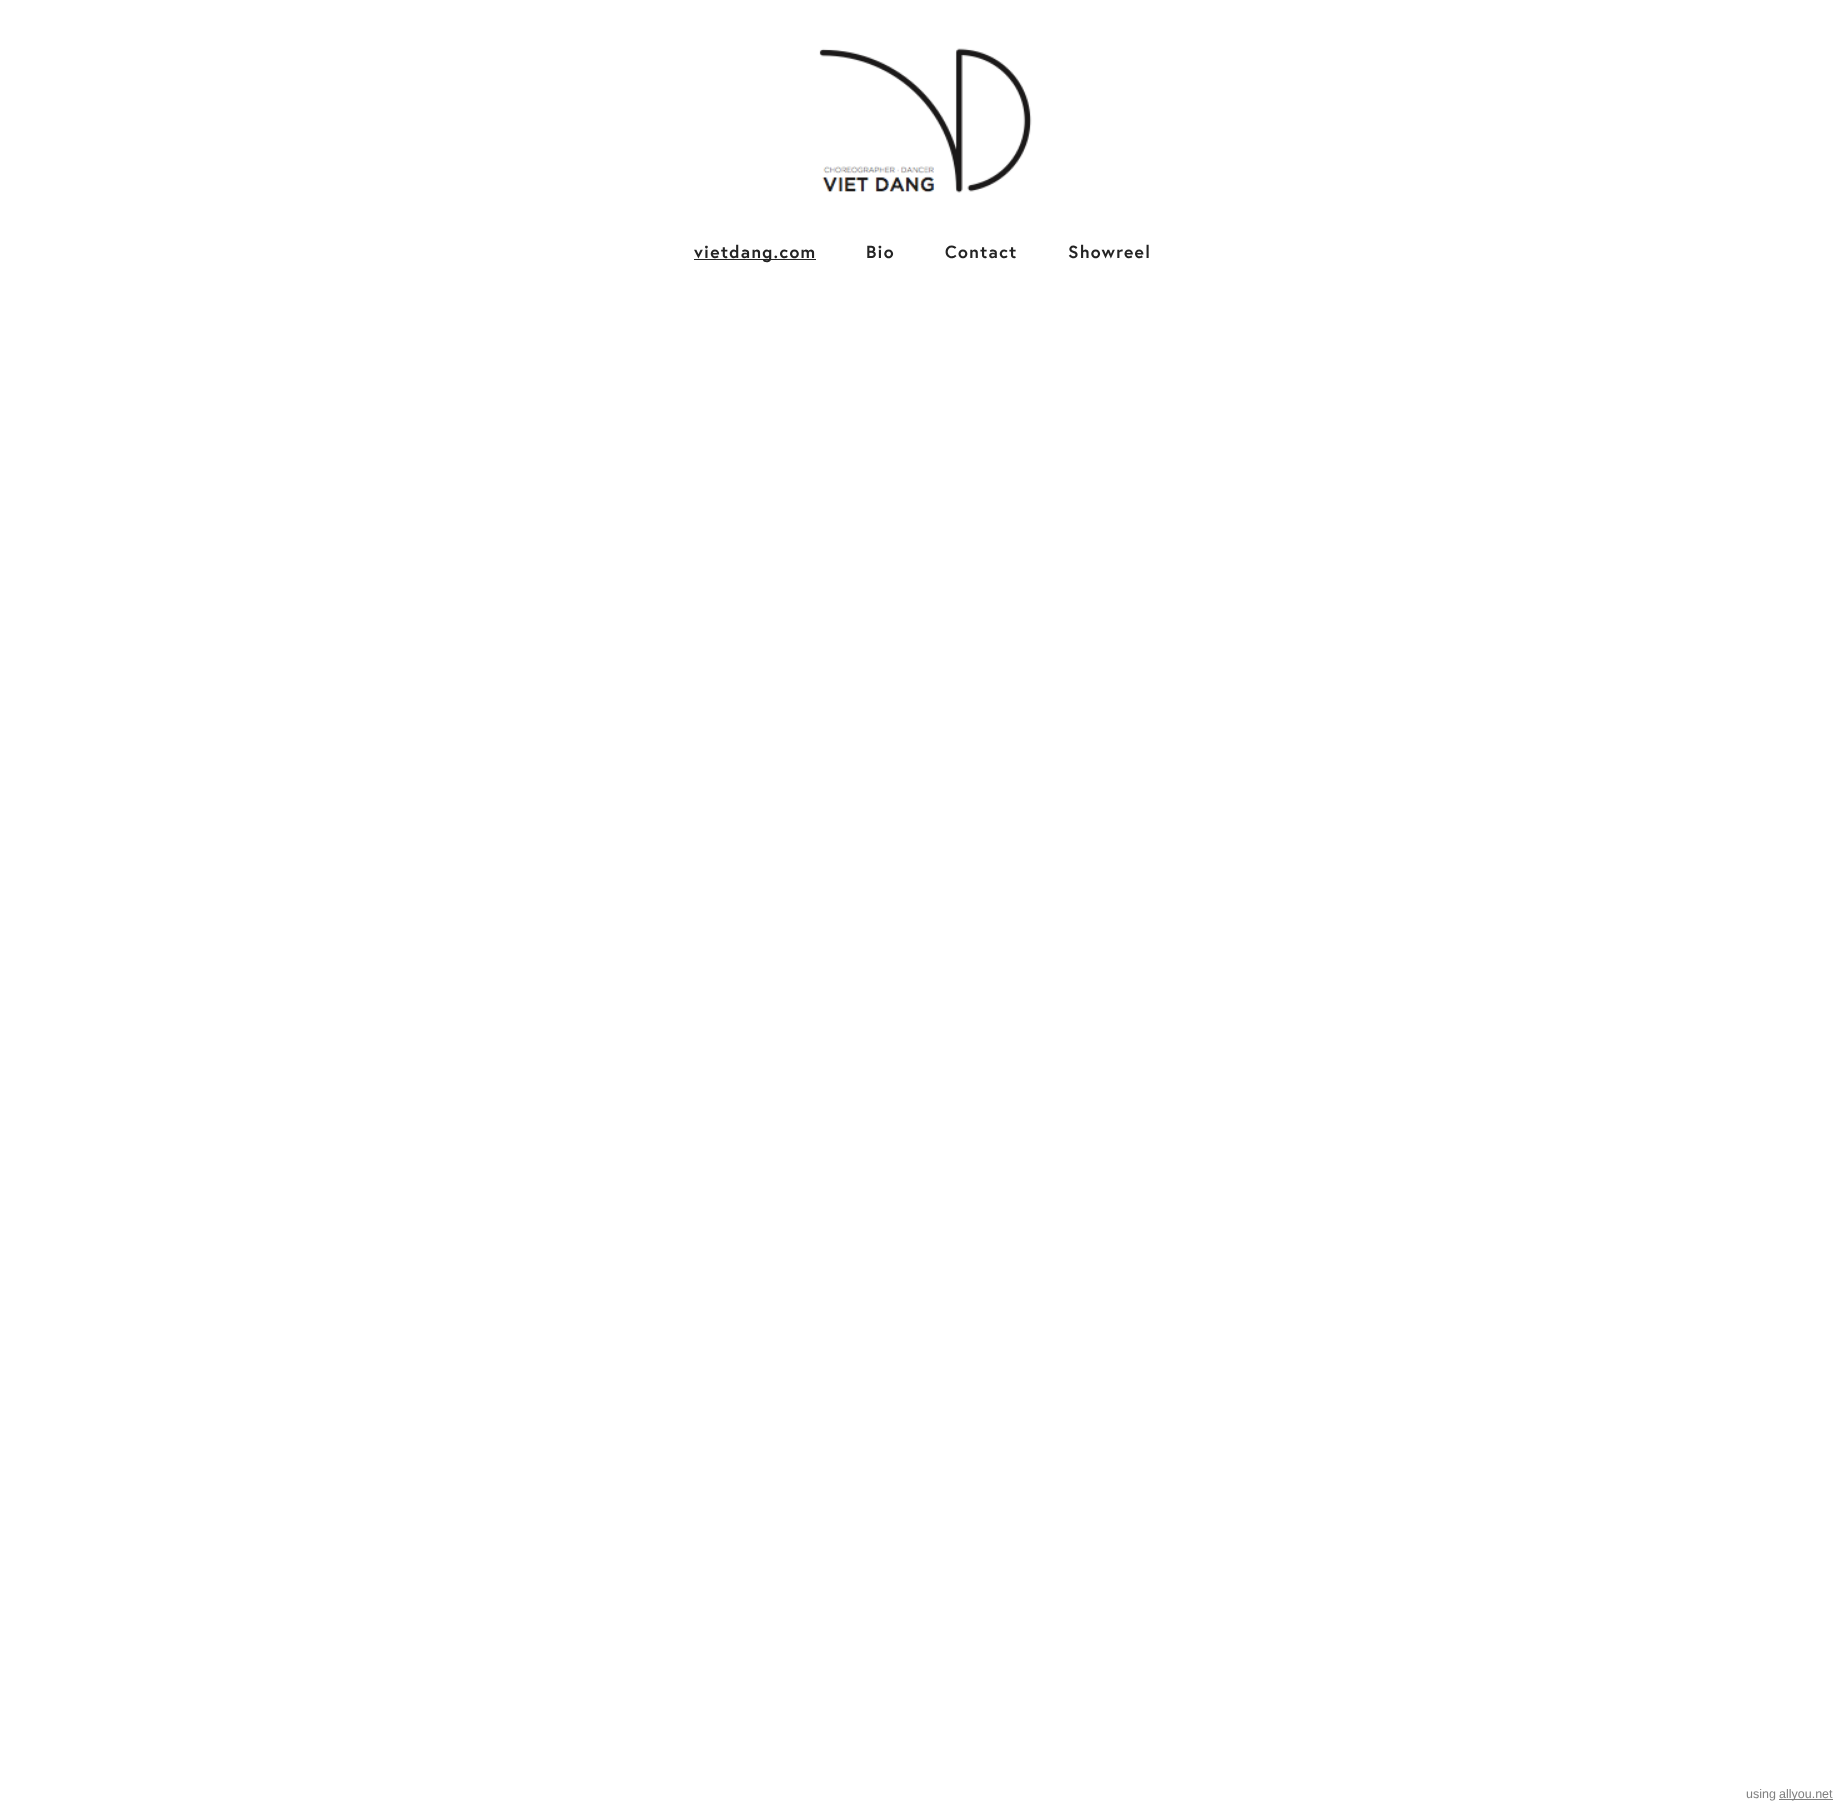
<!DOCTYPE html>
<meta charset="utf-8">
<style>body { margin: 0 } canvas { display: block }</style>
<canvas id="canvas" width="1844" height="1812"></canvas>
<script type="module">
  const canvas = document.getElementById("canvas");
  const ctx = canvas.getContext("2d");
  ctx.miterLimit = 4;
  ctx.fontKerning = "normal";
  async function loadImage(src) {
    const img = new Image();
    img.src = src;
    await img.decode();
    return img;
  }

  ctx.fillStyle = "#ffffff";
  ctx.fillRect(0, 0, 1844, 1812);
  ctx.drawImage(await loadImage("img1.png"), 819, 48, 213, 145);
  ctx.fillStyle = "#242424";
  ctx.fillRect(694, 259, 122, 1);
  ctx.letterSpacing = "1.25px";
  ctx.font = "bold 17.5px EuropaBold";
  ctx.fillText("vietdang.com", 694, 258);
  ctx.fillText("Bio", 866, 258);
  ctx.fillText("Contact", 945, 258);
  ctx.fillText("Showreel", 1068, 258);
  ctx.letterSpacing = "0px";
  ctx.font = "12.5px Liberation Sans";
  ctx.fillStyle = "#808080";
  ctx.fillText("using", 1746, 1798);
  ctx.fillRect(1779, 1799, 54, 1);
  ctx.fillText("allyou.net", 1779, 1798);
</script>
